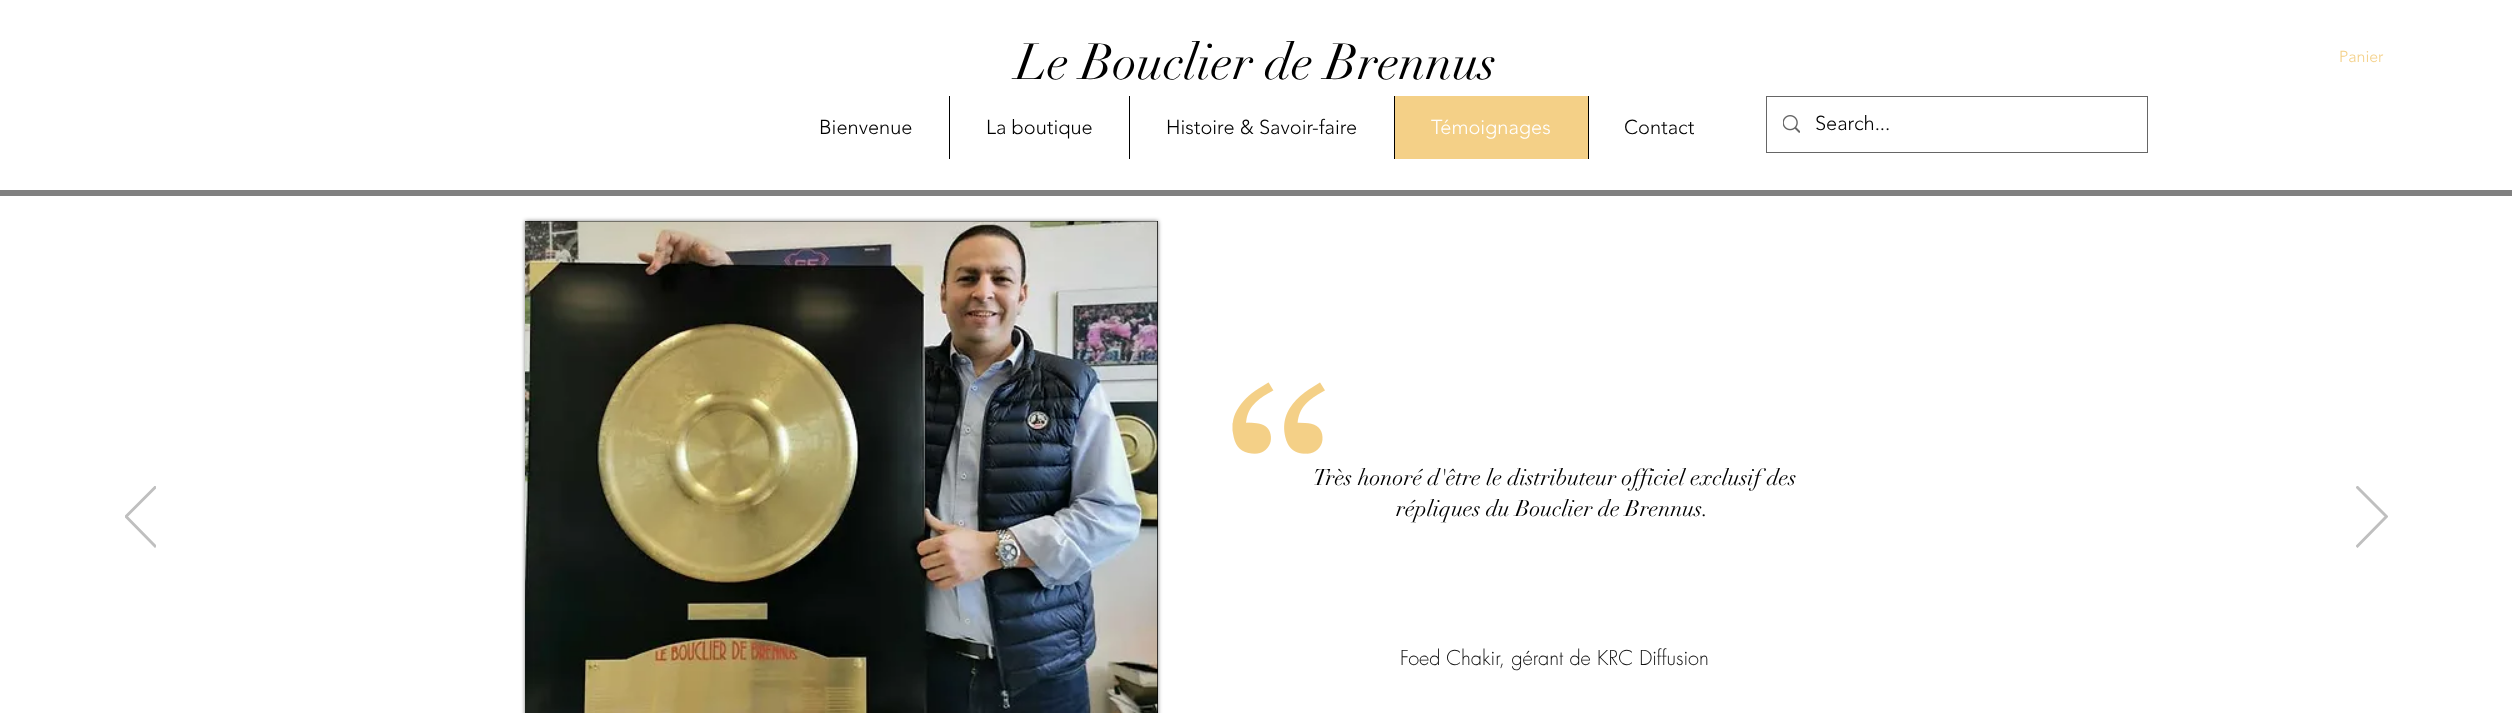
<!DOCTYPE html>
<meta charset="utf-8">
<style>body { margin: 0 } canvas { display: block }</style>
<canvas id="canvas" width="2512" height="713"></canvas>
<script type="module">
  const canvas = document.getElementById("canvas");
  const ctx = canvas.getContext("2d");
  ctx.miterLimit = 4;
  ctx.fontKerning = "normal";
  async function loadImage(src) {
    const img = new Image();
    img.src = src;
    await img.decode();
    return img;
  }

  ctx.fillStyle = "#ffffff";
  ctx.fillRect(0, 0, 2512, 713);
  ctx.font = "50px didot";
  ctx.fillStyle = "#000000";
  ctx.fillText("Le Bouclier de Brennus", 1016, 79);
  ctx.font = "300 20px 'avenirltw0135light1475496'";
  ctx.fillText("Bienvenue", 819, 134);
  ctx.fillRect(949, 96, 1, 63);
  ctx.fillText("La boutique", 986, 134);
  ctx.fillRect(1129, 96, 1, 63);
  ctx.fillText("Histoire & Savoir-faire", 1166, 134);
  ctx.fillStyle = "#f4d087";
  ctx.fillRect(1395, 96, 193, 63);
  ctx.fillStyle = "#000000";
  ctx.fillRect(1394, 96, 1, 63);
  ctx.fillStyle = "#ffffff";
  ctx.fillText("Témoignages", 1431, 134);
  ctx.fillStyle = "#000000";
  ctx.fillRect(1588, 96, 1, 63);
  ctx.fillText("Contact", 1624, 134);
  ctx.strokeStyle = "#666666";
  ctx.strokeRect(1766.5, 96.5, 381, 56);
  ctx.drawImage(await loadImage("img1.png"), 1783, 115, 17, 18);
  ctx.fillText("Search...", 1815, 130);
  ctx.fillStyle = "#808080";
  ctx.fillRect(0, 190, 2512, 6);
  ctx.font = "300 16px 'avenirltw0135light1475496'";
  ctx.fillStyle = "#f4d087";
  ctx.fillText("Panier", 2339, 62);
  ctx.save();
  ctx.beginPath();
  ctx.rect(125, 486, 31, 62);
  ctx.clip();
  ctx.beginPath();
  ctx.moveTo(155, 547);
  ctx.lineTo(125, 516.5);
  ctx.lineTo(155, 486.5);
  ctx.lineTo(156, 487.5);
  ctx.lineTo(127, 516.5);
  ctx.lineTo(156, 546);
  ctx.closePath();
  ctx.strokeStyle = "#bfbfbf";
  ctx.lineWidth = 1.5;
  ctx.stroke();
  ctx.restore();
  ctx.fillStyle = "rgba(0, 0, 0, 0.5)";
  ctx.filter = "blur(2px)";
  ctx.beginPath();
  ctx.rect(525, 221, 633, 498);
  ctx.fill();
  ctx.filter = "none";
  ctx.fillStyle = "#000000";
  ctx.fillRect(525, 221, 633, 492);
  ctx.drawImage(await loadImage("img2.png"), 525, 221, 633, 492);
  ctx.drawImage(await loadImage("img3.png"), 1232, 382, 93, 72);
  ctx.font = "22.5px didot";
  ctx.fillText("Très honoré d'être le distributeur officiel exclusif des", 1313, 485);
  ctx.fillText("répliques du Bouclier de Brennus.", 1396, 516);
  ctx.font = "300 20px futura";
  ctx.fillStyle = "#0f0f0f";
  ctx.fillText("Foed Chakir, gérant de KRC Diffusion", 1400, 665);
  ctx.save();
  ctx.beginPath();
  ctx.rect(2356, 486, 32, 62);
  ctx.clip();
  ctx.beginPath();
  ctx.moveTo(2357.5, 547);
  ctx.lineTo(2387.5, 516.5);
  ctx.lineTo(2357.5, 486.5);
  ctx.lineTo(2356.5, 487.5);
  ctx.lineTo(2385.5, 516.5);
  ctx.lineTo(2356.5, 546);
  ctx.closePath();
  ctx.strokeStyle = "#bfbfbf";
  ctx.lineWidth = 1.5;
  ctx.stroke();
  ctx.restore();
</script>
